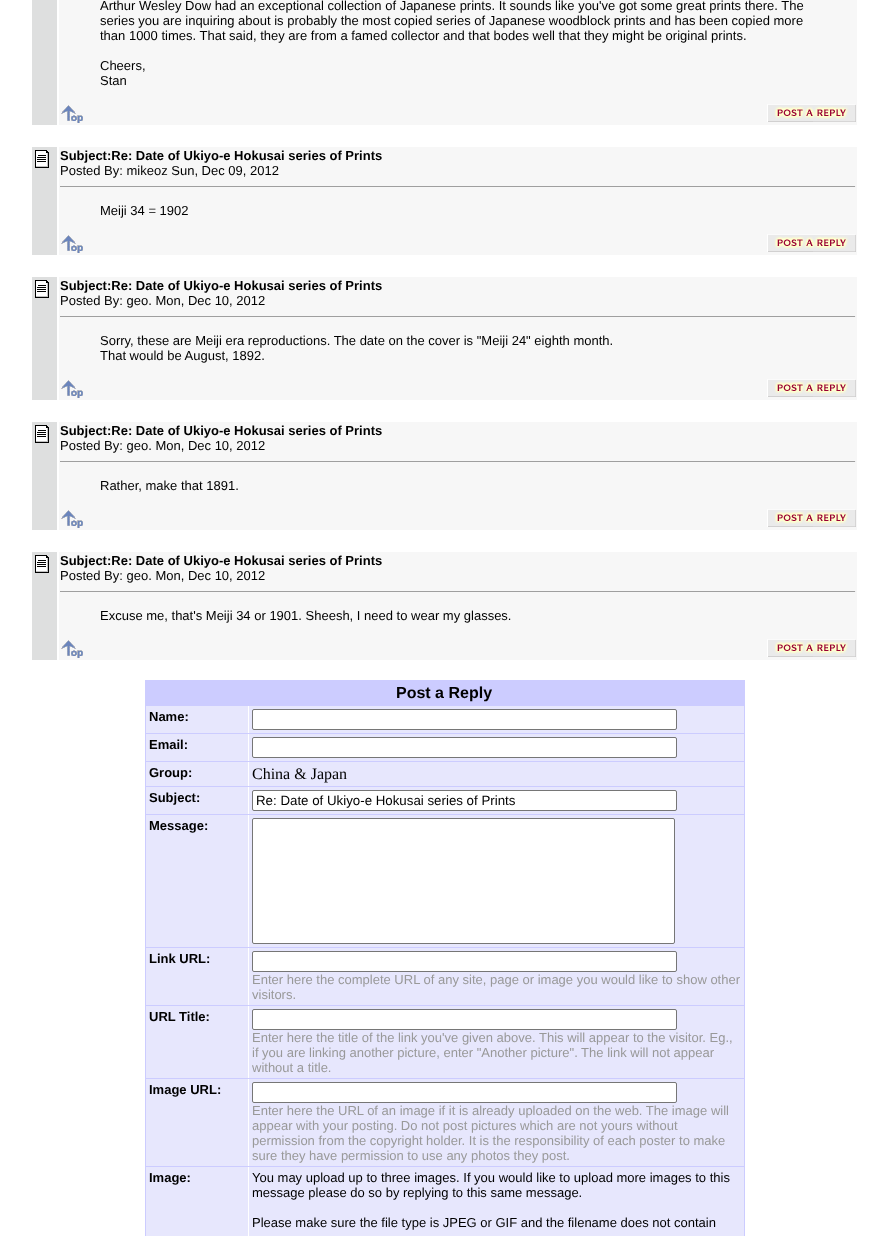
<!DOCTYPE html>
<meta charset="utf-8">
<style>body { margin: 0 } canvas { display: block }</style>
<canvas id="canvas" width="889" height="1236"></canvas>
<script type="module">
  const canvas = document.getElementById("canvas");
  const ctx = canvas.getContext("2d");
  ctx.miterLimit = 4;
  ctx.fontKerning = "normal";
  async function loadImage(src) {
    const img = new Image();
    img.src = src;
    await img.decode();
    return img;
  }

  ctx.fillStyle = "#ffffff";
  ctx.fillRect(0, 0, 889, 1236);
  ctx.fillStyle = "#dedfdf";
  ctx.fillRect(32, 0, 25, 125);
  ctx.fillStyle = "#f7f7f7";
  ctx.fillRect(59, 0, 798, 125);
  ctx.font = "13px Liberation Sans";
  ctx.fillStyle = "#000000";
  ctx.fillText("Arthur Wesley Dow had an exceptional collection of Japanese prints. It sounds like you've got some great prints there. The", 100, 10);
  ctx.fillText("series you are inquiring about is probably the most copied series of Japanese woodblock prints and has been copied more", 100, 25);
  ctx.fillText("than 1000 times. That said, they are from a famed collector and that bodes well that they might be original prints.", 100, 40);
  ctx.fillText("Cheers,", 100, 70);
  ctx.fillText("Stan", 100, 85);
  ctx.drawImage(await loadImage("img1.png"), 61, 105, 22, 18);
  ctx.drawImage(await loadImage("img2.png"), 767, 104, 89, 18);
  ctx.fillStyle = "#dedfdf";
  ctx.fillRect(32, 147, 25, 108);
  ctx.drawImage(await loadImage("img3.png"), 35, 150, 14, 18);
  ctx.fillStyle = "#f7f7f7";
  ctx.fillRect(59, 147, 798, 108);
  ctx.font = "bold 13px Liberation Sans";
  ctx.fillStyle = "#000000";
  ctx.fillText("Subject:Re: Date of Ukiyo-e Hokusai series of Prints", 60, 160);
  ctx.font = "13px Liberation Sans";
  ctx.fillText("Posted By: mikeoz Sun, Dec 09, 2012", 60, 175);
  ctx.fillStyle = "#9f9f9f";
  ctx.fillRect(60, 186, 796, 1);
  ctx.fillStyle = "#eeeeee";
  ctx.fillRect(855, 186, 1, 1);
  ctx.fillStyle = "#000000";
  ctx.fillText("Meiji 34 = 1902", 100, 215);
  ctx.drawImage(await loadImage("img1.png"), 61, 235, 22, 18);
  ctx.drawImage(await loadImage("img2.png"), 767, 234, 89, 18);
  ctx.fillStyle = "#dedfdf";
  ctx.fillRect(32, 277, 25, 123);
  ctx.drawImage(await loadImage("img3.png"), 35, 280, 14, 18);
  ctx.fillStyle = "#f7f7f7";
  ctx.fillRect(59, 277, 798, 123);
  ctx.font = "bold 13px Liberation Sans";
  ctx.fillStyle = "#000000";
  ctx.fillText("Subject:Re: Date of Ukiyo-e Hokusai series of Prints", 60, 290);
  ctx.font = "13px Liberation Sans";
  ctx.fillText("Posted By: geo. Mon, Dec 10, 2012", 60, 305);
  ctx.fillStyle = "#9f9f9f";
  ctx.fillRect(60, 316, 796, 1);
  ctx.fillStyle = "#eeeeee";
  ctx.fillRect(855, 316, 1, 1);
  ctx.fillStyle = "#000000";
  ctx.fillText("Sorry, these are Meiji era reproductions. The date on the cover is \"Meiji 24\" eighth month.", 100, 345);
  ctx.fillText("That would be August, 1892.", 100, 360);
  ctx.drawImage(await loadImage("img1.png"), 61, 380, 22, 18);
  ctx.drawImage(await loadImage("img2.png"), 767, 379, 89, 18);
  ctx.fillStyle = "#dedfdf";
  ctx.fillRect(32, 422, 25, 108);
  ctx.drawImage(await loadImage("img3.png"), 35, 425, 14, 18);
  ctx.fillStyle = "#f7f7f7";
  ctx.fillRect(59, 422, 798, 108);
  ctx.font = "bold 13px Liberation Sans";
  ctx.fillStyle = "#000000";
  ctx.fillText("Subject:Re: Date of Ukiyo-e Hokusai series of Prints", 60, 435);
  ctx.font = "13px Liberation Sans";
  ctx.fillText("Posted By: geo. Mon, Dec 10, 2012", 60, 450);
  ctx.fillStyle = "#9f9f9f";
  ctx.fillRect(60, 461, 796, 1);
  ctx.fillStyle = "#eeeeee";
  ctx.fillRect(855, 461, 1, 1);
  ctx.fillStyle = "#000000";
  ctx.fillText("Rather, make that 1891.", 100, 490);
  ctx.drawImage(await loadImage("img1.png"), 61, 510, 22, 18);
  ctx.drawImage(await loadImage("img2.png"), 767, 509, 89, 18);
  ctx.fillStyle = "#dedfdf";
  ctx.fillRect(32, 552, 25, 108);
  ctx.drawImage(await loadImage("img3.png"), 35, 555, 14, 18);
  ctx.fillStyle = "#f7f7f7";
  ctx.fillRect(59, 552, 798, 108);
  ctx.font = "bold 13px Liberation Sans";
  ctx.fillStyle = "#000000";
  ctx.fillText("Subject:Re: Date of Ukiyo-e Hokusai series of Prints", 60, 565);
  ctx.font = "13px Liberation Sans";
  ctx.fillText("Posted By: geo. Mon, Dec 10, 2012", 60, 580);
  ctx.fillStyle = "#9f9f9f";
  ctx.fillRect(60, 591, 796, 1);
  ctx.fillStyle = "#eeeeee";
  ctx.fillRect(855, 591, 1, 1);
  ctx.fillStyle = "#000000";
  ctx.fillText("Excuse me, that's Meiji 34 or 1901. Sheesh, I need to wear my glasses.", 100, 620);
  ctx.drawImage(await loadImage("img1.png"), 61, 640, 22, 18);
  ctx.drawImage(await loadImage("img2.png"), 767, 639, 89, 18);
  ctx.fillStyle = "#ccccff";
  ctx.fillRect(145, 680, 600, 556);
  ctx.font = "bold 16px Liberation Sans";
  ctx.fillStyle = "#000000";
  ctx.fillText("Post a Reply", 396, 698);
  ctx.fillStyle = "#ffffff";
  ctx.fillRect(248, 706, 1, 27);
  ctx.fillStyle = "#e7e7fd";
  ctx.fillRect(146, 706, 102, 27);
  ctx.font = "bold 13px Liberation Sans";
  ctx.fillStyle = "#000000";
  ctx.fillText("Name:", 149, 721);
  ctx.fillStyle = "#e7e7fd";
  ctx.fillRect(249, 706, 495, 27);
  ctx.fillStyle = "#ffffff";
  ctx.beginPath();
  ctx.roundRect(252.5, 709.5, 424, 20, 1.5);
  ctx.fill();
  ctx.strokeStyle = "#767676";
  ctx.stroke();
  ctx.fillRect(248, 734, 1, 27);
  ctx.fillStyle = "#e7e7fd";
  ctx.fillRect(146, 734, 102, 27);
  ctx.fillStyle = "#000000";
  ctx.fillText("Email:", 149, 749);
  ctx.fillStyle = "#e7e7fd";
  ctx.fillRect(249, 734, 495, 27);
  ctx.fillStyle = "#ffffff";
  ctx.beginPath();
  ctx.roundRect(252.5, 737.5, 424, 20, 1.5);
  ctx.fill();
  ctx.stroke();
  ctx.fillRect(248, 762, 1, 24);
  ctx.fillStyle = "#e7e7fd";
  ctx.fillRect(146, 762, 102, 24);
  ctx.fillStyle = "#000000";
  ctx.fillText("Group:", 149, 777);
  ctx.fillStyle = "#e7e7fd";
  ctx.fillRect(249, 762, 495, 24);
  ctx.font = "16px Liberation Serif";
  ctx.fillStyle = "#000000";
  ctx.fillText("China & Japan", 252, 779);
  ctx.fillStyle = "#ffffff";
  ctx.fillRect(248, 787, 1, 27);
  ctx.fillStyle = "#e7e7fd";
  ctx.fillRect(146, 787, 102, 27);
  ctx.font = "bold 13px Liberation Sans";
  ctx.fillStyle = "#000000";
  ctx.fillText("Subject:", 149, 802);
  ctx.fillStyle = "#e7e7fd";
  ctx.fillRect(249, 787, 495, 27);
  ctx.fillStyle = "#ffffff";
  ctx.beginPath();
  ctx.roundRect(252.5, 790.5, 424, 20, 1.5);
  ctx.fill();
  ctx.stroke();
  ctx.font = "13.3px Liberation Sans";
  ctx.fillStyle = "#000000";
  ctx.fillText("Re: Date of Ukiyo-e Hokusai series of Prints", 256, 805);
  ctx.fillStyle = "#ffffff";
  ctx.fillRect(248, 815, 1, 132);
  ctx.fillStyle = "#e7e7fd";
  ctx.fillRect(146, 815, 102, 132);
  ctx.font = "bold 13px Liberation Sans";
  ctx.fillStyle = "#000000";
  ctx.fillText("Message:", 149, 830);
  ctx.fillStyle = "#e7e7fd";
  ctx.fillRect(249, 815, 495, 132);
  ctx.fillStyle = "#ffffff";
  ctx.beginPath();
  ctx.roundRect(252.5, 818.5, 422, 125, 1.5);
  ctx.fill();
  ctx.stroke();
  ctx.fillRect(248, 948, 1, 57);
  ctx.fillStyle = "#e7e7fd";
  ctx.fillRect(146, 948, 102, 57);
  ctx.fillStyle = "#000000";
  ctx.fillText("Link URL:", 149, 963);
  ctx.fillStyle = "#e7e7fd";
  ctx.fillRect(249, 948, 495, 57);
  ctx.fillStyle = "#ffffff";
  ctx.beginPath();
  ctx.roundRect(252.5, 951.5, 424, 20, 1.5);
  ctx.fill();
  ctx.stroke();
  ctx.font = "13px Liberation Sans";
  ctx.fillStyle = "#999999";
  ctx.fillText("Enter here the complete URL of any site, page or image you would like to show other", 252, 984);
  ctx.fillText("visitors.", 252, 999);
  ctx.fillStyle = "#ffffff";
  ctx.fillRect(248, 1006, 1, 72);
  ctx.fillStyle = "#e7e7fd";
  ctx.fillRect(146, 1006, 102, 72);
  ctx.font = "bold 13px Liberation Sans";
  ctx.fillStyle = "#000000";
  ctx.fillText("URL Title:", 149, 1021);
  ctx.fillStyle = "#e7e7fd";
  ctx.fillRect(249, 1006, 495, 72);
  ctx.fillStyle = "#ffffff";
  ctx.beginPath();
  ctx.roundRect(252.5, 1009.5, 424, 20, 1.5);
  ctx.fill();
  ctx.stroke();
  ctx.font = "13px Liberation Sans";
  ctx.fillStyle = "#999999";
  ctx.fillText("Enter here the title of the link you've given above. This will appear to the visitor. Eg.,", 252, 1042);
  ctx.fillText("if you are linking another picture, enter \"Another picture\". The link will not appear", 252, 1057);
  ctx.fillText("without a title.", 252, 1072);
  ctx.fillStyle = "#ffffff";
  ctx.fillRect(248, 1079, 1, 87);
  ctx.fillStyle = "#e7e7fd";
  ctx.fillRect(146, 1079, 102, 87);
  ctx.font = "bold 13px Liberation Sans";
  ctx.fillStyle = "#000000";
  ctx.fillText("Image URL:", 149, 1094);
  ctx.fillStyle = "#e7e7fd";
  ctx.fillRect(249, 1079, 495, 87);
  ctx.fillStyle = "#ffffff";
  ctx.beginPath();
  ctx.roundRect(252.5, 1082.5, 424, 20, 1.5);
  ctx.fill();
  ctx.stroke();
  ctx.font = "13px Liberation Sans";
  ctx.fillStyle = "#999999";
  ctx.fillText("Enter here the URL of an image if it is already uploaded on the web. The image will", 252, 1115);
  ctx.fillText("appear with your posting. Do not post pictures which are not yours without", 252, 1130);
  ctx.fillText("permission from the copyright holder. It is the responsibility of each poster to make", 252, 1145);
  ctx.fillText("sure they have permission to use any photos they post.", 252, 1160);
  ctx.fillStyle = "#ffffff";
  ctx.fillRect(248, 1167, 1, 69);
  ctx.fillStyle = "#e7e7fd";
  ctx.fillRect(146, 1167, 102, 69);
  ctx.font = "bold 13px Liberation Sans";
  ctx.fillStyle = "#000000";
  ctx.fillText("Image:", 149, 1182);
  ctx.fillStyle = "#e7e7fd";
  ctx.fillRect(249, 1167, 495, 69);
  ctx.font = "13px Liberation Sans";
  ctx.fillStyle = "#000000";
  ctx.fillText("You may upload up to three images. If you would like to upload more images to this", 252, 1182);
  ctx.fillText("message please do so by replying to this same message.", 252, 1197);
  ctx.fillText("Please make sure the file type is JPEG or GIF and the filename does not contain", 252, 1227);
</script>
